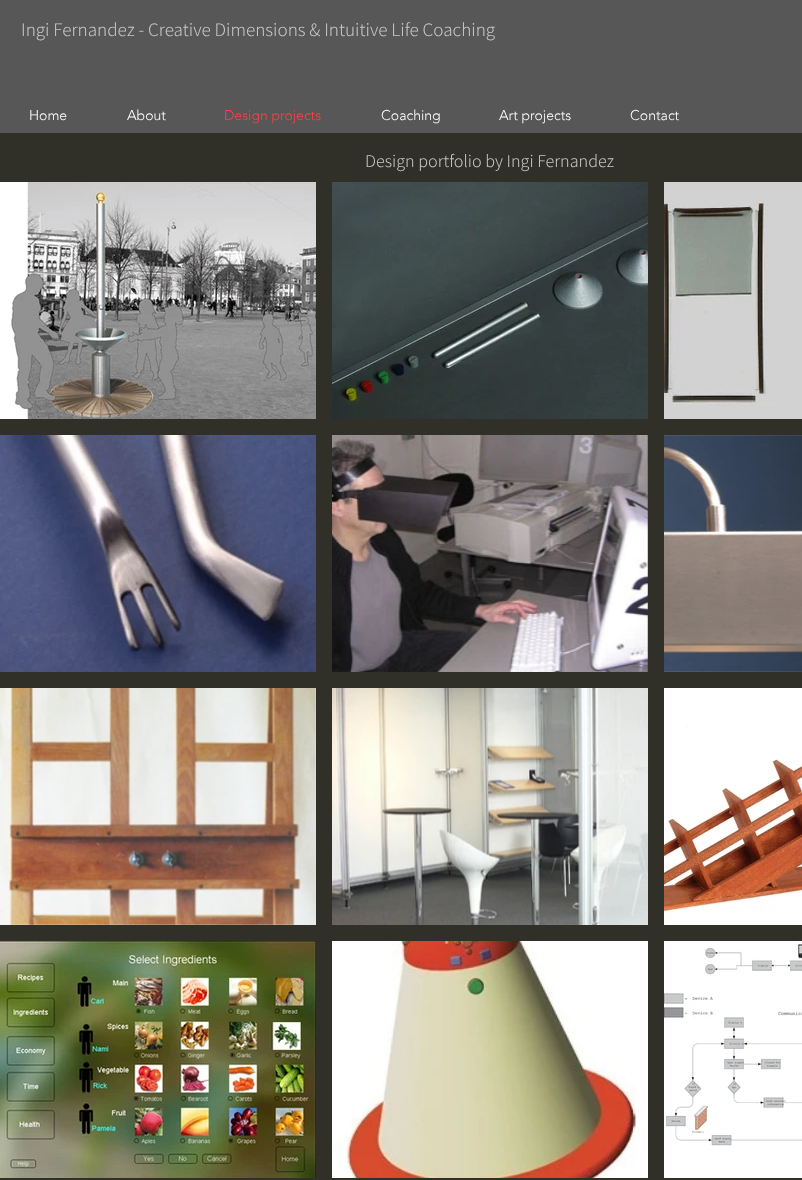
<!DOCTYPE html>
<meta charset="utf-8">
<style>body { margin: 0 } canvas { display: block }</style>
<canvas id="canvas" width="802" height="1180"></canvas>
<script type="module">
  const canvas = document.getElementById("canvas");
  const ctx = canvas.getContext("2d");
  ctx.miterLimit = 4;
  ctx.fontKerning = "normal";
  async function loadImage(src) {
    const img = new Image();
    img.src = src;
    await img.decode();
    return img;
  }

  ctx.fillStyle = "#303029";
  ctx.fillRect(0, 0, 802, 1180);
  ctx.fillStyle = "#575757";
  ctx.fillRect(0, 0, 802, 133);
  ctx.font = "300 19px Assistant";
  ctx.fillStyle = "#c7c7c7";
  ctx.fillText("Ingi Fernandez - Creative Dimensions & Intuitive Life Coaching", 21, 36);
  ctx.font = "300 14px 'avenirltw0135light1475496'";
  ctx.fillStyle = "#ffffff";
  ctx.fillText("Home", 29, 120);
  ctx.fillText("About", 127, 120);
  ctx.fillStyle = "#ff4040";
  ctx.fillText("Design projects", 224, 120);
  ctx.fillStyle = "#ffffff";
  ctx.fillText("Coaching", 381, 120);
  ctx.fillText("Art projects", 499, 120);
  ctx.fillText("Contact", 630, 120);
  ctx.font = "300 18px Assistant";
  ctx.fillStyle = "#c7c7c7";
  ctx.fillText("Design portfolio by Ingi Fernandez", 365, 167);
  ctx.drawImage(await loadImage("img1.png"), 0, 182, 316, 237);
  ctx.drawImage(await loadImage("img2.png"), 332, 182, 316, 237);
  ctx.drawImage(await loadImage("img3.png"), 664, 182, 138, 237);
  ctx.drawImage(await loadImage("img4.png"), 0, 435, 316, 237);
  ctx.drawImage(await loadImage("img5.png"), 332, 435, 316, 237);
  ctx.drawImage(await loadImage("img6.png"), 664, 435, 138, 237);
  ctx.fillStyle = "#e8e6e6";
  ctx.fillRect(0, 688, 316, 237);
  ctx.drawImage(await loadImage("img7.png"), 0, 688, 316, 237);
  ctx.drawImage(await loadImage("img8.png"), 332, 688, 316, 237);
  ctx.drawImage(await loadImage("img9.png"), 664, 688, 138, 237);
  ctx.drawImage(await loadImage("img10.png"), 0, 941, 316, 237);
  ctx.drawImage(await loadImage("img11.png"), 332, 941, 316, 237);
  ctx.drawImage(await loadImage("img12.png"), 664, 941, 138, 237);
</script>
